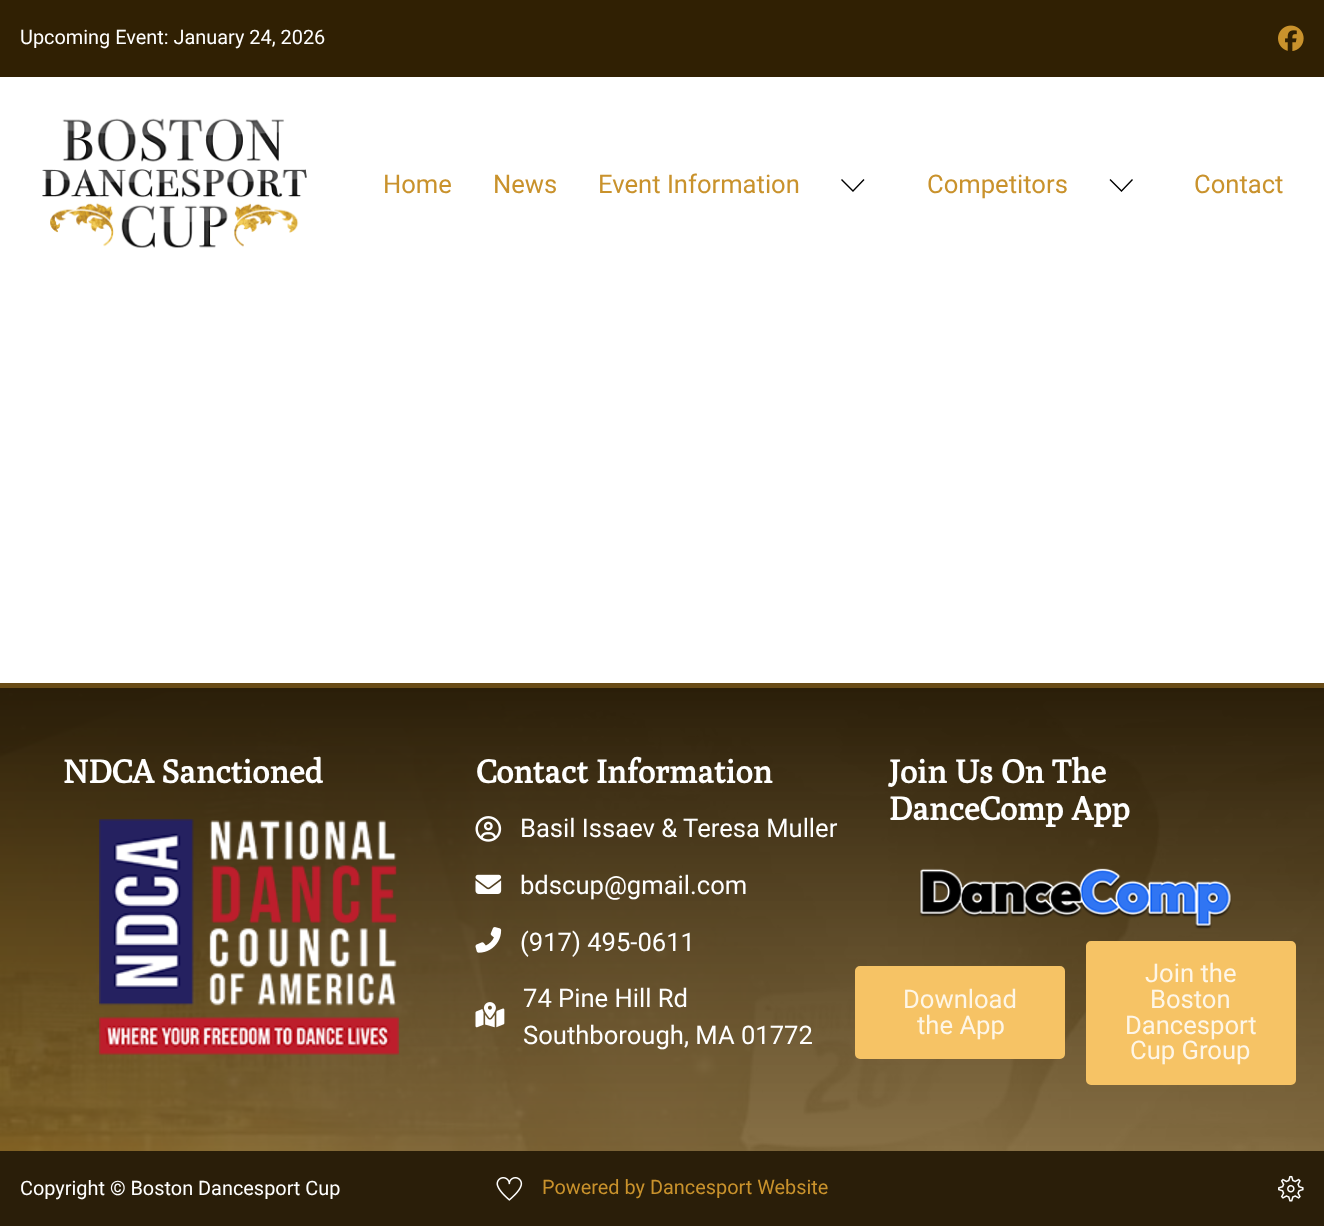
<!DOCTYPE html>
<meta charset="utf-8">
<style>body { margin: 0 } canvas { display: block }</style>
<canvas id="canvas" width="1324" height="1226"></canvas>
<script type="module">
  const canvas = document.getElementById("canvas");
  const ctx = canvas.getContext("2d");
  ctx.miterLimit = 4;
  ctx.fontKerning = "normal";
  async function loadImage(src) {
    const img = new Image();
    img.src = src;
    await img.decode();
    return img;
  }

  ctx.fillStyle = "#ffffff";
  ctx.fillRect(0, 0, 1324, 1226);
  ctx.drawImage(await loadImage("img1.png"), 0, 688, 1324, 463);
  ctx.fillStyle = "#302003";
  ctx.fillRect(0, 0, 1324, 77);
  ctx.font = "19.9px Roboto";
  ctx.fillStyle = "#ffffff";
  ctx.fillText("Upcoming Event: January 24, 2026", 20, 44);
  ctx.drawImage(await loadImage("img2.png"), 1278, 25, 26, 26);
  ctx.drawImage(await loadImage("img3.png"), 42, 118, 265, 130);
  ctx.font = "25.6px Roboto";
  ctx.fillStyle = "#c9922c";
  ctx.fillText("Home", 383, 193);
  ctx.fillText("News", 493, 193);
  ctx.fillText("Event Information", 598, 193);
  ctx.fillStyle = "#000000";
  ctx.beginPath();
  ctx.moveTo(864.5, 180);
  ctx.lineTo(853, 192);
  ctx.lineTo(841, 180);
  ctx.lineTo(842, 179);
  ctx.lineTo(853, 190);
  ctx.lineTo(863.5, 179);
  ctx.closePath();
  ctx.fill();
  ctx.fillStyle = "#c9922c";
  ctx.fillText("Competitors", 927, 193);
  ctx.fillStyle = "#000000";
  ctx.beginPath();
  ctx.moveTo(1133, 180);
  ctx.lineTo(1121.5, 192);
  ctx.lineTo(1109.5, 180);
  ctx.lineTo(1110.5, 179);
  ctx.lineTo(1121.5, 190);
  ctx.lineTo(1132, 179);
  ctx.closePath();
  ctx.fill();
  ctx.fillStyle = "#c9922c";
  ctx.fillText("Contact", 1194, 193);
  ctx.fillStyle = "#694c17";
  ctx.fillRect(0, 683, 1324, 5);
  ctx.font = "bold 32.75px Poly";
  ctx.fillStyle = "#ffffff";
  ctx.fillText("NDCA Sanctioned", 63, 783);
  ctx.drawImage(await loadImage("img4.png"), 99, 819, 300, 236);
  ctx.fillText("Contact Information", 476, 783);
  ctx.drawImage(await loadImage("img5.png"), 475, 816, 27, 26);
  ctx.font = "25.6px Roboto";
  ctx.fillText("Basil Issaev & Teresa Muller", 520, 837);
  ctx.drawImage(await loadImage("img6.png"), 475, 874, 27, 20);
  ctx.fillText("bdscup@gmail.com", 520, 894);
  ctx.drawImage(await loadImage("img7.png"), 475, 927, 27, 26);
  ctx.fillText("(917) 495-0611", 520, 951);
  ctx.drawImage(await loadImage("img8.png"), 475, 1002, 30, 26);
  ctx.fillText("74 Pine Hill Rd", 523, 1007);
  ctx.fillText("Southborough, MA 01772", 523, 1044);
  ctx.font = "bold 32.75px Poly";
  ctx.fillText("Join Us On The", 889, 783);
  ctx.fillText("DanceComp App", 889, 820);
  ctx.drawImage(await loadImage("img9.png"), 919, 868, 313, 61);
  ctx.fillStyle = "#f6c365";
  ctx.beginPath();
  ctx.roundRect(856, 967, 208, 91, 4);
  ctx.fill();
  ctx.strokeStyle = "#f6c365";
  ctx.lineWidth = 2;
  ctx.stroke();
  ctx.font = "25.6px Roboto";
  ctx.fillStyle = "#fef6e7";
  ctx.fillText("Download", 903, 1008);
  ctx.fillText("the App", 917, 1034);
  ctx.fillStyle = "#f6c365";
  ctx.beginPath();
  ctx.roundRect(1087, 942, 208, 142, 4);
  ctx.fill();
  ctx.stroke();
  ctx.fillStyle = "#fef6e7";
  ctx.fillText("Join the", 1145, 982);
  ctx.fillText("Boston", 1150, 1008);
  ctx.fillText("Dancesport", 1125, 1034);
  ctx.fillText("Cup Group", 1130, 1059);
  ctx.fillStyle = "#2a1e09";
  ctx.fillRect(0, 1151, 1324, 75);
  ctx.font = "19.9px Roboto";
  ctx.fillStyle = "#ffffff";
  ctx.fillText("Copyright © Boston Dancesport Cup", 20, 1195);
  ctx.drawImage(await loadImage("img10.png"), 496, 1177, 27, 24);
  ctx.fillStyle = "#c9922c";
  ctx.fillText("Powered by Dancesport Website", 542, 1194);
  ctx.drawImage(await loadImage("img11.png"), 1278, 1175, 26, 27);
</script>
